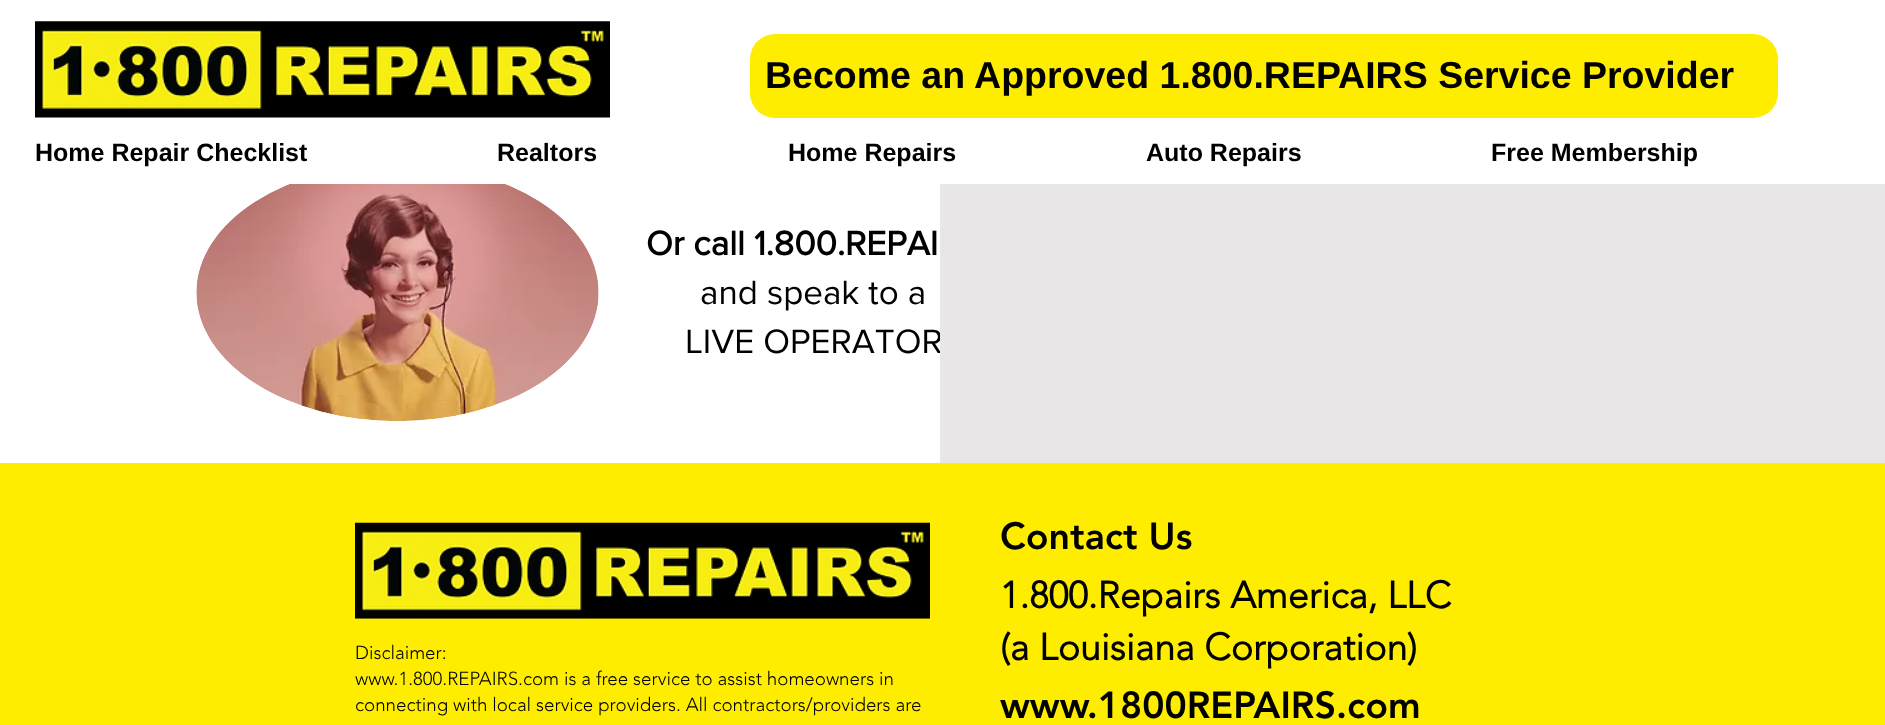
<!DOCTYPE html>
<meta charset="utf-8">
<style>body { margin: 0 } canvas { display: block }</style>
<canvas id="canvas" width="1885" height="725"></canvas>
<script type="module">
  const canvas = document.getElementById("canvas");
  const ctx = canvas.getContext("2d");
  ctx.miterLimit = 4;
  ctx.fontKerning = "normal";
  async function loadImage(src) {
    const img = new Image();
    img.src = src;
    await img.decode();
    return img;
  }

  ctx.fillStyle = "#ffed00";
  ctx.fillRect(0, 0, 1885, 725);
  ctx.fillStyle = "#ffffff";
  ctx.fillRect(0, 0, 1885, 184);
  ctx.drawImage(await loadImage("img1.png"), 35, 21, 575, 97);
  ctx.fillStyle = "#ffed00";
  ctx.beginPath();
  ctx.roundRect(750, 34, 1028, 84, 25);
  ctx.fill();
  ctx.font = "bold 37.5px Liberation Sans";
  ctx.fillStyle = "#000000";
  ctx.fillText("Become an Approved 1.800.REPAIRS Service Provider", 765, 88);
  ctx.font = "bold 25px Liberation Sans";
  ctx.fillText("Home Repair Checklist", 35, 161);
  ctx.fillText("Realtors", 497, 161);
  ctx.fillText("Home Repairs", 788, 161);
  ctx.fillText("Auto Repairs", 1146, 161);
  ctx.fillText("Free Membership", 1491, 161);
  ctx.fillStyle = "#ffffff";
  ctx.fillRect(0, 184, 940, 279);
  ctx.drawImage(await loadImage("img2.png"), 196, 184, 403, 237);
  ctx.font = "bold 35px 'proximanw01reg'";
  ctx.fillStyle = "#000000";
  ctx.fillText("Or call 1.800.REPAI", 646, 255);
  ctx.font = "35px 'proximanw01reg'";
  ctx.fillText("and speak to a", 700, 304);
  ctx.fillText("LIVE OPERATOR", 685, 353);
  ctx.fillStyle = "#e8e6e6";
  ctx.fillRect(940, 184, 945, 279);
  ctx.drawImage(await loadImage("img3.png"), 355, 522, 575, 97);
  ctx.font = "900 37.5px 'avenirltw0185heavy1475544'";
  ctx.fillStyle = "#000000";
  ctx.fillText("Contact Us", 1000, 549);
  ctx.font = "bold 37.5px 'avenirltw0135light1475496'";
  ctx.fillText("1.800.Repairs America, LLC", 1000, 608);
  ctx.fillText("(a Louisiana Corporation)", 1000, 660);
  ctx.font = "900 37.5px 'avenirltw0185heavy1475544'";
  ctx.fillText("www.1800REPAIRS.com", 1000, 718);
  ctx.font = "300 18.75px 'avenirltw0135light1475496'";
  ctx.fillText("Disclaimer:", 355, 659);
  ctx.fillText("www.1.800.REPAIRS.com is a free service to assist homeowners in", 355, 685);
  ctx.fillText("connecting with local service providers. All contractors/providers are", 355, 711);
</script>
